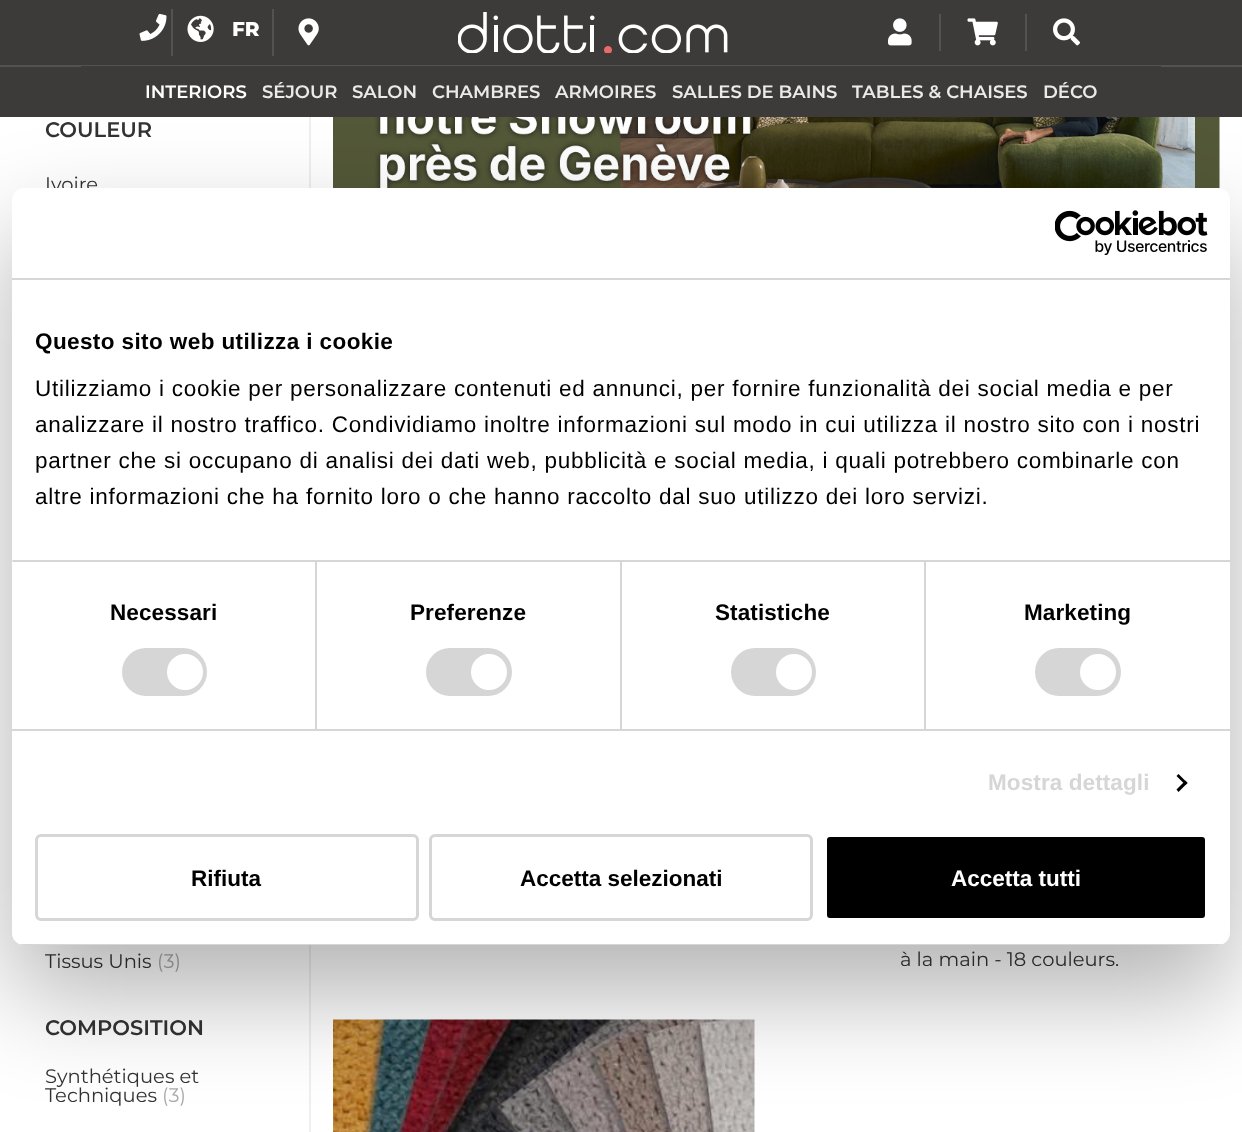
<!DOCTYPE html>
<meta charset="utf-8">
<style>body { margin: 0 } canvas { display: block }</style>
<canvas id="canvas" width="1242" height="1132"></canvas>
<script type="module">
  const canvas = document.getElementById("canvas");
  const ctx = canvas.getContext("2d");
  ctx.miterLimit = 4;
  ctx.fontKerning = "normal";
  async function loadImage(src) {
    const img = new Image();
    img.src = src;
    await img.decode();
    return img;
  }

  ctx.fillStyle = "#ffffff";
  ctx.fillRect(0, 0, 1242, 1132);
  ctx.fillStyle = "#3c3b39";
  ctx.fillRect(0, 0, 1242, 117);
  ctx.fillStyle = "#545250";
  ctx.fillRect(171, 9, 2, 47);
  ctx.drawImage(await loadImage("img1.png"), 139, 13, 28, 28);
  ctx.drawImage(await loadImage("img2.png"), 187, 15, 27, 27);
  ctx.font = "800 20px Montserrat";
  ctx.fillStyle = "#ffffff";
  ctx.fillText("FR", 232, 36);
  ctx.fillStyle = "#545250";
  ctx.fillRect(272, 9, 2, 47);
  ctx.drawImage(await loadImage("img3.png"), 298, 18, 21, 28);
  ctx.drawImage(await loadImage("img4.png"), 458, 12, 270, 41);
  ctx.fillRect(939, 14, 2, 37);
  ctx.drawImage(await loadImage("img5.png"), 888, 18, 24, 28);
  ctx.fillRect(1025, 14, 2, 37);
  ctx.drawImage(await loadImage("img6.png"), 967, 18, 31, 28);
  ctx.drawImage(await loadImage("img7.png"), 1053, 18, 27, 28);
  ctx.fillRect(0, 65, 1242, 2);
  ctx.fillStyle = "#3c3b39";
  ctx.fillRect(81, 66, 1080, 1);
  ctx.font = "600 18px Montserrat";
  ctx.fillStyle = "#ffffff";
  ctx.fillText("INTERIORS", 145, 98);
  ctx.fillStyle = "#eaeaea";
  ctx.fillText("SÉJOUR", 262, 98);
  ctx.fillText("SALON", 352, 98);
  ctx.fillText("CHAMBRES", 432, 98);
  ctx.fillText("ARMOIRES", 555, 98);
  ctx.fillText("SALLES DE BAINS", 672, 98);
  ctx.fillText("TABLES & CHAISES", 852, 98);
  ctx.fillText("DÉCO", 1043, 98);
  ctx.fillStyle = "#efefef";
  ctx.fillRect(309, 117, 2, 1015);
  ctx.font = "600 21px Montserrat";
  ctx.fillStyle = "#333333";
  ctx.fillText("COULEUR", 45, 137);
  ctx.font = "19.5px Montserrat";
  ctx.fillText("Ivoire", 45, 191);
  ctx.fillText("Tissus Unis", 45, 968);
  ctx.fillStyle = "#aaaaaa";
  ctx.fillText("(3)", 157, 968);
  ctx.font = "600 21px Montserrat";
  ctx.fillStyle = "#333333";
  ctx.fillText("COMPOSITION", 45, 1035);
  ctx.font = "19.5px Montserrat";
  ctx.fillText("Synthétiques et", 45, 1083);
  ctx.fillText("Techniques", 45, 1102);
  ctx.fillStyle = "#aaaaaa";
  ctx.fillText("(3)", 162, 1102);
  ctx.drawImage(await loadImage("img8.png"), 333, 117, 887, 72);
  ctx.fillStyle = "#333333";
  ctx.fillText("à la main - 18 couleurs.", 900, 966);
  ctx.drawImage(await loadImage("img9.png"), 333, 1019, 422, 113);
  ctx.fillStyle = "rgba(0, 0, 0, 0.3)";
  ctx.filter = "blur(51px)";
  ctx.beginPath();
  ctx.roundRect(12, 236, 1218, 757, 12);
  ctx.fill();
  ctx.filter = "none";
  ctx.fillStyle = "#ffffff";
  ctx.beginPath();
  ctx.roundRect(12, 188, 1218, 757, 12);
  ctx.fill();
  ctx.fillStyle = "#d6d6d6";
  ctx.fillRect(12, 278, 1218, 2);
  ctx.drawImage(await loadImage("img10.png"), 1055, 210, 153, 45);
  ctx.fillRect(315, 561, 2, 168);
  ctx.fillRect(620, 561, 2, 168);
  ctx.fillRect(924, 561, 2, 168);
  ctx.fillRect(12, 560, 1218, 2);
  ctx.letterSpacing = "0.4px";
  ctx.font = "bold 22.5px Liberation Sans";
  ctx.fillStyle = "#000000";
  ctx.fillText("Questo sito web utilizza i cookie", 35, 349);
  ctx.letterSpacing = "0.75px";
  ctx.font = "22.5px Liberation Sans";
  ctx.fillText("Utilizziamo i cookie per personalizzare contenuti ed annunci, per fornire funzionalità dei social media e per", 35, 396);
  ctx.fillText("analizzare il nostro traffico. Condividiamo inoltre informazioni sul modo in cui utilizza il nostro sito con i nostri", 35, 432);
  ctx.fillText("partner che si occupano di analisi dei dati web, pubblicità e social media, i quali potrebbero combinarle con", 35, 468);
  ctx.fillText("altre informazioni che ha fornito loro o che hanno raccolto dal suo utilizzo dei loro servizi.", 35, 504);
  ctx.fillStyle = "#d6d6d6";
  ctx.fillRect(12, 729, 1218, 2);
  ctx.fillStyle = "#e5e5e5";
  ctx.fillRect(12, 560, 1, 2);
  ctx.letterSpacing = "0.1px";
  ctx.font = "bold 22.5px Liberation Sans";
  ctx.fillStyle = "#000000";
  ctx.fillText("Necessari", 110, 620);
  ctx.fillStyle = "#d6d6d6";
  ctx.beginPath();
  ctx.roundRect(122, 648, 85, 48, 24);
  ctx.fill();
  ctx.fillStyle = "#ffffff";
  ctx.beginPath();
  ctx.arc(185, 672, 18, 0, Math.PI * 2);
  ctx.fill();
  ctx.fillStyle = "#000000";
  ctx.fillText("Preferenze", 410, 620);
  ctx.fillStyle = "#d6d6d6";
  ctx.beginPath();
  ctx.roundRect(426, 648, 86, 48, 24);
  ctx.fill();
  ctx.fillStyle = "#ffffff";
  ctx.beginPath();
  ctx.arc(489, 672, 18, 0, Math.PI * 2);
  ctx.fill();
  ctx.fillStyle = "#000000";
  ctx.fillText("Statistiche", 715, 620);
  ctx.fillStyle = "#d6d6d6";
  ctx.beginPath();
  ctx.roundRect(731, 648, 85, 48, 24);
  ctx.fill();
  ctx.fillStyle = "#ffffff";
  ctx.beginPath();
  ctx.arc(794, 672, 18, 0, Math.PI * 2);
  ctx.fill();
  ctx.fillStyle = "#000000";
  ctx.fillText("Marketing", 1024, 620);
  ctx.fillStyle = "#d6d6d6";
  ctx.beginPath();
  ctx.roundRect(1035, 648, 86, 48, 24);
  ctx.fill();
  ctx.fillStyle = "#ffffff";
  ctx.beginPath();
  ctx.arc(1098, 672, 18, 0, Math.PI * 2);
  ctx.fill();
  ctx.fillStyle = "#d6d6d6";
  ctx.fillText("Mostra dettagli", 988, 790);
  ctx.fillStyle = "#000000";
  ctx.beginPath();
  ctx.moveTo(1178.5, 774);
  ctx.lineTo(1187.5, 783);
  ctx.lineTo(1185.5, 785);
  ctx.lineTo(1176.5, 776);
  ctx.closePath();
  ctx.fill();
  ctx.beginPath();
  ctx.moveTo(1185.5, 780.5);
  ctx.lineTo(1187.5, 783);
  ctx.lineTo(1178.5, 792);
  ctx.lineTo(1176.5, 789.5);
  ctx.closePath();
  ctx.fill();
  ctx.save();
  ctx.beginPath();
  ctx.roundRect(12, 188, 1218, 757, 12);
  ctx.clip();
  ctx.fillStyle = "#d6d6d6";
  ctx.fillRect(12, 944, 1218, 1);
  ctx.restore();
  ctx.beginPath();
  ctx.roundRect(36.5, 835.5, 381, 84, 4.5);
  ctx.strokeStyle = "#d6d6d6";
  ctx.lineWidth = 3;
  ctx.stroke();
  ctx.letterSpacing = "0px";
  ctx.fillText("Rifiuta", 191, 886);
  ctx.beginPath();
  ctx.roundRect(430.5, 835.5, 381, 84, 4.5);
  ctx.stroke();
  ctx.fillText("Accetta selezionati", 520, 886);
  ctx.beginPath();
  ctx.roundRect(825.5, 835.5, 381, 84, 4.5);
  ctx.fill();
  ctx.strokeStyle = "#ffffff";
  ctx.stroke();
  ctx.fillStyle = "#ffffff";
  ctx.fillText("Accetta tutti", 951, 886);
</script>
